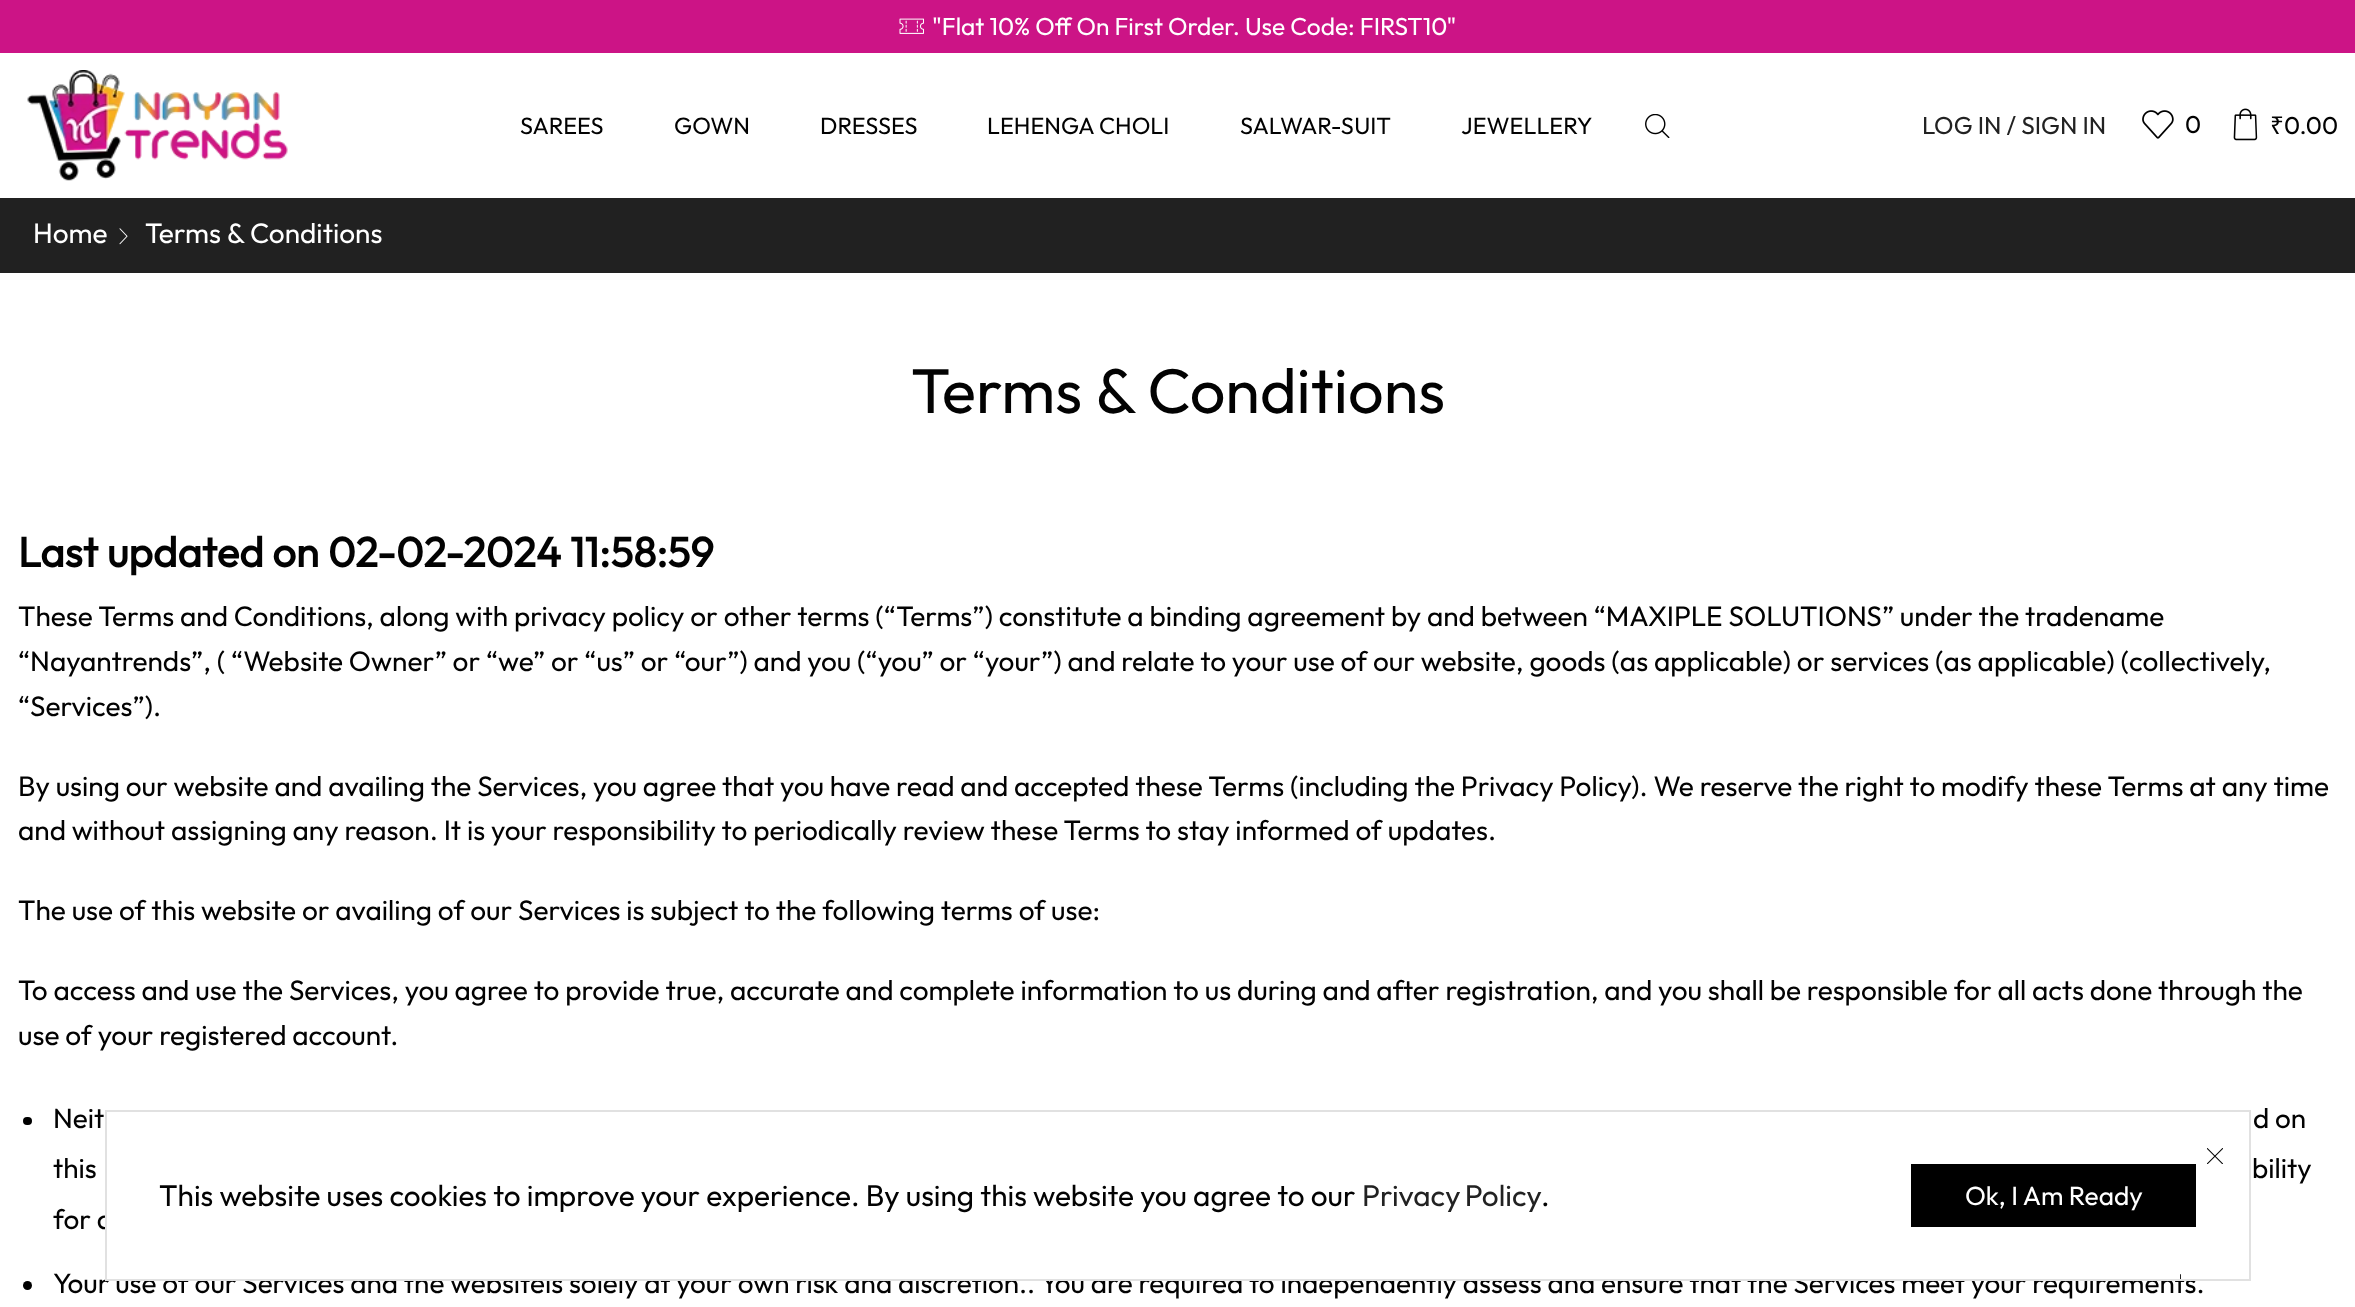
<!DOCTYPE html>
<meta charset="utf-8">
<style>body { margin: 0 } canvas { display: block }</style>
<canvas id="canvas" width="2355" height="1307"></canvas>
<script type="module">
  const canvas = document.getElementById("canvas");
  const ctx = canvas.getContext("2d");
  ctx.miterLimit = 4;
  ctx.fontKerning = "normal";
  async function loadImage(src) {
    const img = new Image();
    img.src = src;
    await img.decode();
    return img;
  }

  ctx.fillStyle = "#ffffff";
  ctx.fillRect(0, 0, 2355, 1307);
  ctx.fillStyle = "#cc1486";
  ctx.fillRect(0, 0, 2355, 53);
  ctx.drawImage(await loadImage("img1.png"), 899, 18, 25, 16);
  ctx.font = "24.5px Outfit";
  ctx.fillStyle = "#ffffff";
  ctx.fillText("\"Flat 10% Off On First Order. Use Code: FIRST10\"", 932, 35);
  ctx.drawImage(await loadImage("img2.png"), 27, 70, 261, 111);
  ctx.font = "23.5px Outfit";
  ctx.fillStyle = "#020202";
  ctx.fillText("SAREES", 520, 134);
  ctx.fillText("GOWN", 674, 134);
  ctx.fillText("DRESSES", 820, 134);
  ctx.fillText("LEHENGA CHOLI", 987, 134);
  ctx.fillText("SALWAR-SUIT", 1240, 134);
  ctx.fillText("JEWELLERY", 1461, 134);
  ctx.drawImage(await loadImage("img3.png"), 1645, 114, 25, 24);
  ctx.font = "24.5px Outfit";
  ctx.fillStyle = "#222222";
  ctx.fillText("LOG IN / SIGN IN", 1922, 134);
  ctx.drawImage(await loadImage("img4.png"), 2142, 110, 32, 29);
  ctx.fillStyle = "#020202";
  ctx.fillText("0", 2185, 133);
  ctx.drawImage(await loadImage("img5.png"), 2233, 108, 25, 33);
  ctx.font = "24.5px Noto Sans";
  ctx.fillText("₹", 2270, 134);
  ctx.font = "24.5px Outfit";
  ctx.fillText("0.00", 2284, 134);
  ctx.fillStyle = "#212121";
  ctx.fillRect(0, 198, 2355, 75);
  ctx.font = "28px Outfit";
  ctx.fillStyle = "#ffffff";
  ctx.fillText("Home", 33, 243);
  ctx.drawImage(await loadImage("img6.png"), 119, 228, 9, 17);
  ctx.fillText("Terms & Conditions", 145, 243);
  ctx.font = "63px Outfit";
  ctx.fillStyle = "#020202";
  ctx.fillText("Terms & Conditions", 911, 413);
  ctx.font = "bold 42px Outfit";
  ctx.fillText("Last updated on 02-02-2024 11:58:59", 18, 567);
  ctx.font = "28px Outfit";
  ctx.fillText("These Terms and Conditions, along with privacy policy or other terms (“Terms”) constitute a binding agreement by and between “MAXIPLE SOLUTIONS” under the tradename", 18, 626);
  ctx.fillText("“Nayantrends”, ( “Website Owner” or “we” or “us” or “our”) and you (“you” or “your”) and relate to your use of our website, goods (as applicable) or services (as applicable) (collectively,", 18, 671);
  ctx.fillText("“Services”).", 18, 716);
  ctx.fillText("By using our website and availing the Services, you agree that you have read and accepted these Terms (including the Privacy Policy). We reserve the right to modify these Terms at any time", 18, 796);
  ctx.fillText("and without assigning any reason. It is your responsibility to periodically review these Terms to stay informed of updates.", 18, 840);
  ctx.fillText("The use of this website or availing of our Services is subject to the following terms of use:", 18, 920);
  ctx.fillText("To access and use the Services, you agree to provide true, accurate and complete information to us during and after registration, and you shall be responsible for all acts done through the", 18, 1000);
  ctx.fillText("use of your registered account.", 18, 1045);
  ctx.fillStyle = "#000000";
  ctx.beginPath();
  ctx.roundRect(23, 1117, 9, 8, 4);
  ctx.fill();
  ctx.font = "27.93px Outfit";
  ctx.fillStyle = "#020202";
  ctx.fillText("Neit", 53, 1128);
  ctx.fillText("d on", 2253, 1128);
  ctx.fillText("this", 53, 1178);
  ctx.fillText("bility", 2252, 1178);
  ctx.fillText("for a", 53, 1229);
  ctx.fillStyle = "#000000";
  ctx.beginPath();
  ctx.arc(27.5, 1285.5, 4.5, 0, Math.PI * 2);
  ctx.fill();
  ctx.fillStyle = "#020202";
  ctx.fillText("Your use of our Services and the websiteis solely at your own risk and discretion.. You are required to independently assess and ensure that the Services meet your requirements.", 53, 1293);
  ctx.fillStyle = "#ffffff";
  ctx.fillRect(107, 1215, 2073, 64);
  ctx.strokeStyle = "#e1e1e1";
  ctx.lineWidth = 2;
  ctx.strokeRect(106, 1111, 2144, 169);
  ctx.drawImage(await loadImage("img7.png"), 2207, 1148, 16, 16);
  ctx.font = "29.75px Outfit";
  ctx.fillStyle = "#020202";
  ctx.fillText("This website uses cookies to improve your experience. By using this website you agree to our", 159, 1206);
  ctx.wordSpacing = "-2px";
  ctx.fillStyle = "#222222";
  ctx.fillText("Privacy Policy", 1362, 1206);
  ctx.wordSpacing = "0px";
  ctx.fillStyle = "#020202";
  ctx.fillText(".", 1541, 1206);
  ctx.fillStyle = "#000000";
  ctx.fillRect(1911, 1164, 285, 63);
  ctx.font = "26.25px Outfit";
  ctx.fillStyle = "#ffffff";
  ctx.fillText("Ok, I Am Ready", 1965, 1205);
</script>
